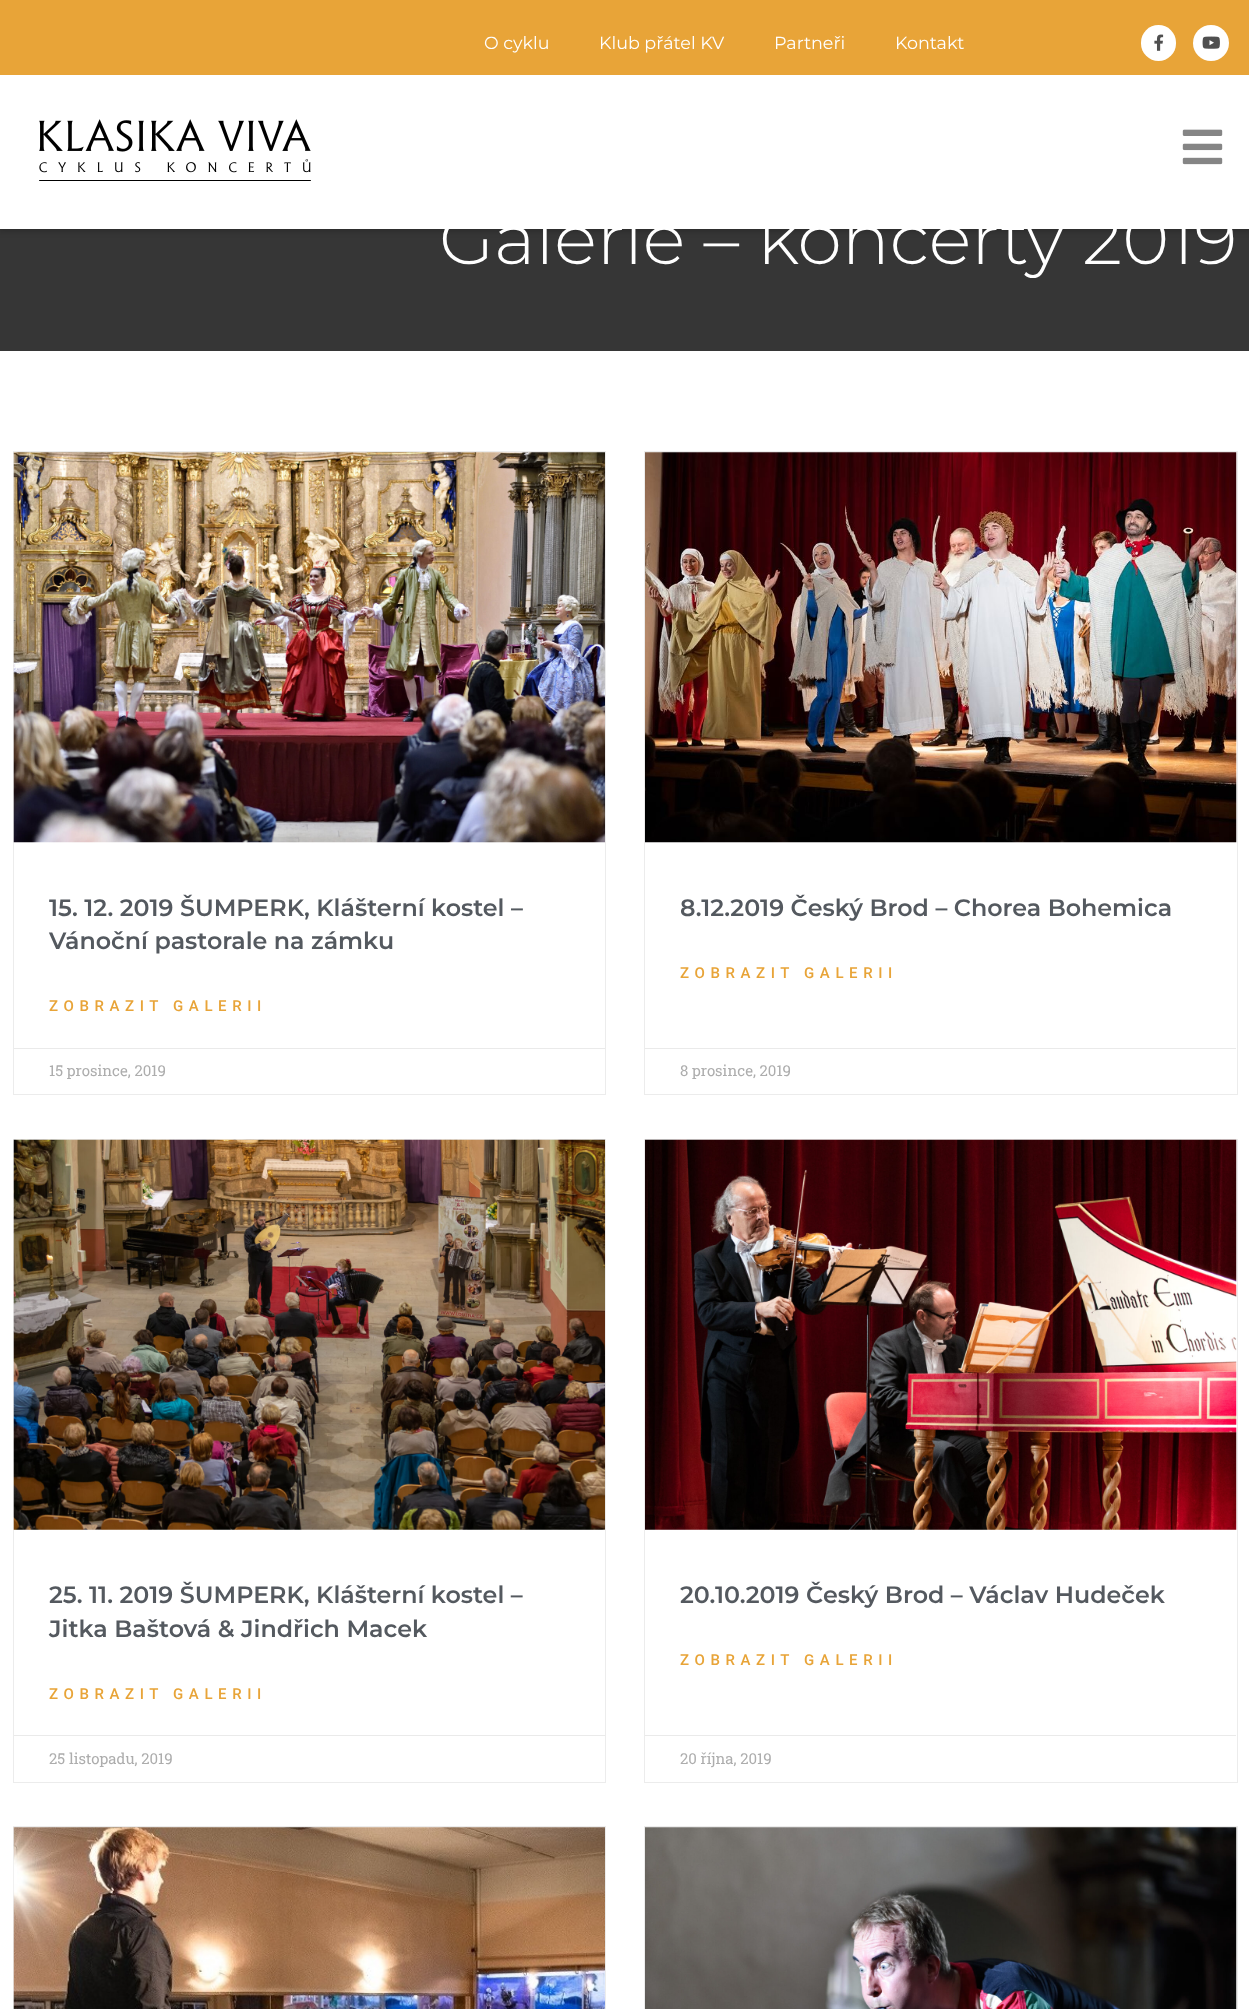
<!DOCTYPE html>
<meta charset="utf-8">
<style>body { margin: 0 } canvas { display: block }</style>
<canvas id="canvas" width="1249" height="2009"></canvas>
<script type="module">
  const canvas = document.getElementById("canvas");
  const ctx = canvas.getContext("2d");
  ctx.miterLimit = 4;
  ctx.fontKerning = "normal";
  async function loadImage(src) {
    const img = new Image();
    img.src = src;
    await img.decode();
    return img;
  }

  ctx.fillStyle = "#ffffff";
  ctx.fillRect(0, 0, 1249, 2009);
  ctx.fillStyle = "#363636";
  ctx.fillRect(0, 229, 1249, 122);
  ctx.fillStyle = "rgba(0, 0, 0, 0.21)";
  ctx.filter = "blur(3px)";
  ctx.beginPath();
  ctx.rect(-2, 73, 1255, 158);
  ctx.fill();
  ctx.filter = "none";
  ctx.fillStyle = "#e8a438";
  ctx.fillRect(0, 0, 1249, 75);
  ctx.font = "17.5px Montserrat";
  ctx.fillStyle = "#ffffff";
  ctx.fillText("O cyklu", 484, 49);
  ctx.fillText("Klub přátel KV", 599, 49);
  ctx.fillText("Partneři", 774, 49);
  ctx.fillText("Kontakt", 895, 49);
  ctx.beginPath();
  ctx.roundRect(1141, 25, 35, 36, 17.5);
  ctx.fill();
  ctx.drawImage(await loadImage("img1.png"), 1154, 34, 10, 17);
  ctx.beginPath();
  ctx.arc(1211, 43, 18, 0, Math.PI * 2);
  ctx.fill();
  ctx.drawImage(await loadImage("img2.png"), 1202, 36, 18, 13);
  ctx.fillRect(0, 75, 1249, 154);
  ctx.drawImage(await loadImage("img3.png"), 39, 119, 272, 62);
  ctx.drawImage(await loadImage("img4.png"), 1182, 129, 41, 36);
  ctx.font = "300 71.25px Montserrat";
  ctx.fillText("Galerie – koncerty 2019", 439, 264);
  ctx.strokeStyle = "#ececec";
  ctx.strokeRect(13.5, 451.5, 592, 643);
  ctx.drawImage(await loadImage("img5.png"), 13, 452, 592, 391);
  ctx.font = "600 23.75px Montserrat";
  ctx.fillStyle = "#54595f";
  ctx.fillText("15. 12. 2019 ŠUMPERK, Klášterní kostel –", 49, 916);
  ctx.fillText("Vánoční pastorale na zámku", 49, 949);
  ctx.letterSpacing = "5.6px";
  ctx.font = "500 15px Roboto";
  ctx.fillStyle = "#e8a438";
  ctx.fillText("ZOBRAZIT GALERII", 49, 1011);
  ctx.fillStyle = "#eaeaea";
  ctx.fillRect(14, 1048, 591, 1);
  ctx.letterSpacing = "0px";
  ctx.font = "15px Roboto Slab";
  ctx.fillStyle = "#adadad";
  ctx.fillText("15 prosince, 2019", 49, 1076);
  ctx.strokeRect(644.5, 451.5, 593, 643);
  ctx.drawImage(await loadImage("img6.png"), 645, 452, 592, 391);
  ctx.font = "600 23.75px Montserrat";
  ctx.fillStyle = "#54595f";
  ctx.fillText("8.12.2019 Český Brod – Chorea Bohemica", 680, 916);
  ctx.letterSpacing = "5.6px";
  ctx.font = "500 15px Roboto";
  ctx.fillStyle = "#e8a438";
  ctx.fillText("ZOBRAZIT GALERII", 680, 978);
  ctx.fillStyle = "#eaeaea";
  ctx.fillRect(645, 1048, 591, 1);
  ctx.letterSpacing = "0px";
  ctx.font = "15px Roboto Slab";
  ctx.fillStyle = "#adadad";
  ctx.fillText("8 prosince, 2019", 680, 1076);
  ctx.strokeRect(13.5, 1139.5, 592, 643);
  ctx.drawImage(await loadImage("img7.png"), 13, 1139, 592, 391);
  ctx.font = "600 23.75px Montserrat";
  ctx.fillStyle = "#54595f";
  ctx.fillText("25. 11. 2019 ŠUMPERK, Klášterní kostel –", 49, 1603);
  ctx.fillText("Jitka Baštová & Jindřich Macek", 49, 1637);
  ctx.letterSpacing = "5.6px";
  ctx.font = "500 15px Roboto";
  ctx.fillStyle = "#e8a438";
  ctx.fillText("ZOBRAZIT GALERII", 49, 1699);
  ctx.fillStyle = "#eaeaea";
  ctx.fillRect(14, 1735, 591, 1);
  ctx.letterSpacing = "0px";
  ctx.font = "15px Roboto Slab";
  ctx.fillStyle = "#adadad";
  ctx.fillText("25 listopadu, 2019", 49, 1764);
  ctx.strokeRect(644.5, 1139.5, 593, 643);
  ctx.drawImage(await loadImage("img8.png"), 645, 1139, 592, 391);
  ctx.font = "600 23.75px Montserrat";
  ctx.fillStyle = "#54595f";
  ctx.fillText("20.10.2019 Český Brod – Václav Hudeček", 680, 1603);
  ctx.letterSpacing = "5.6px";
  ctx.font = "500 15px Roboto";
  ctx.fillStyle = "#e8a438";
  ctx.fillText("ZOBRAZIT GALERII", 680, 1665);
  ctx.fillStyle = "#eaeaea";
  ctx.fillRect(645, 1735, 591, 1);
  ctx.letterSpacing = "0px";
  ctx.font = "15px Roboto Slab";
  ctx.fillStyle = "#adadad";
  ctx.fillText("20 října, 2019", 680, 1764);
  ctx.strokeRect(13.5, 1826.5, 592, 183);
  ctx.drawImage(await loadImage("img9.png"), 13, 1827, 592, 182);
  ctx.strokeRect(644.5, 1826.5, 593, 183);
  ctx.drawImage(await loadImage("img10.png"), 645, 1827, 592, 182);
</script>
